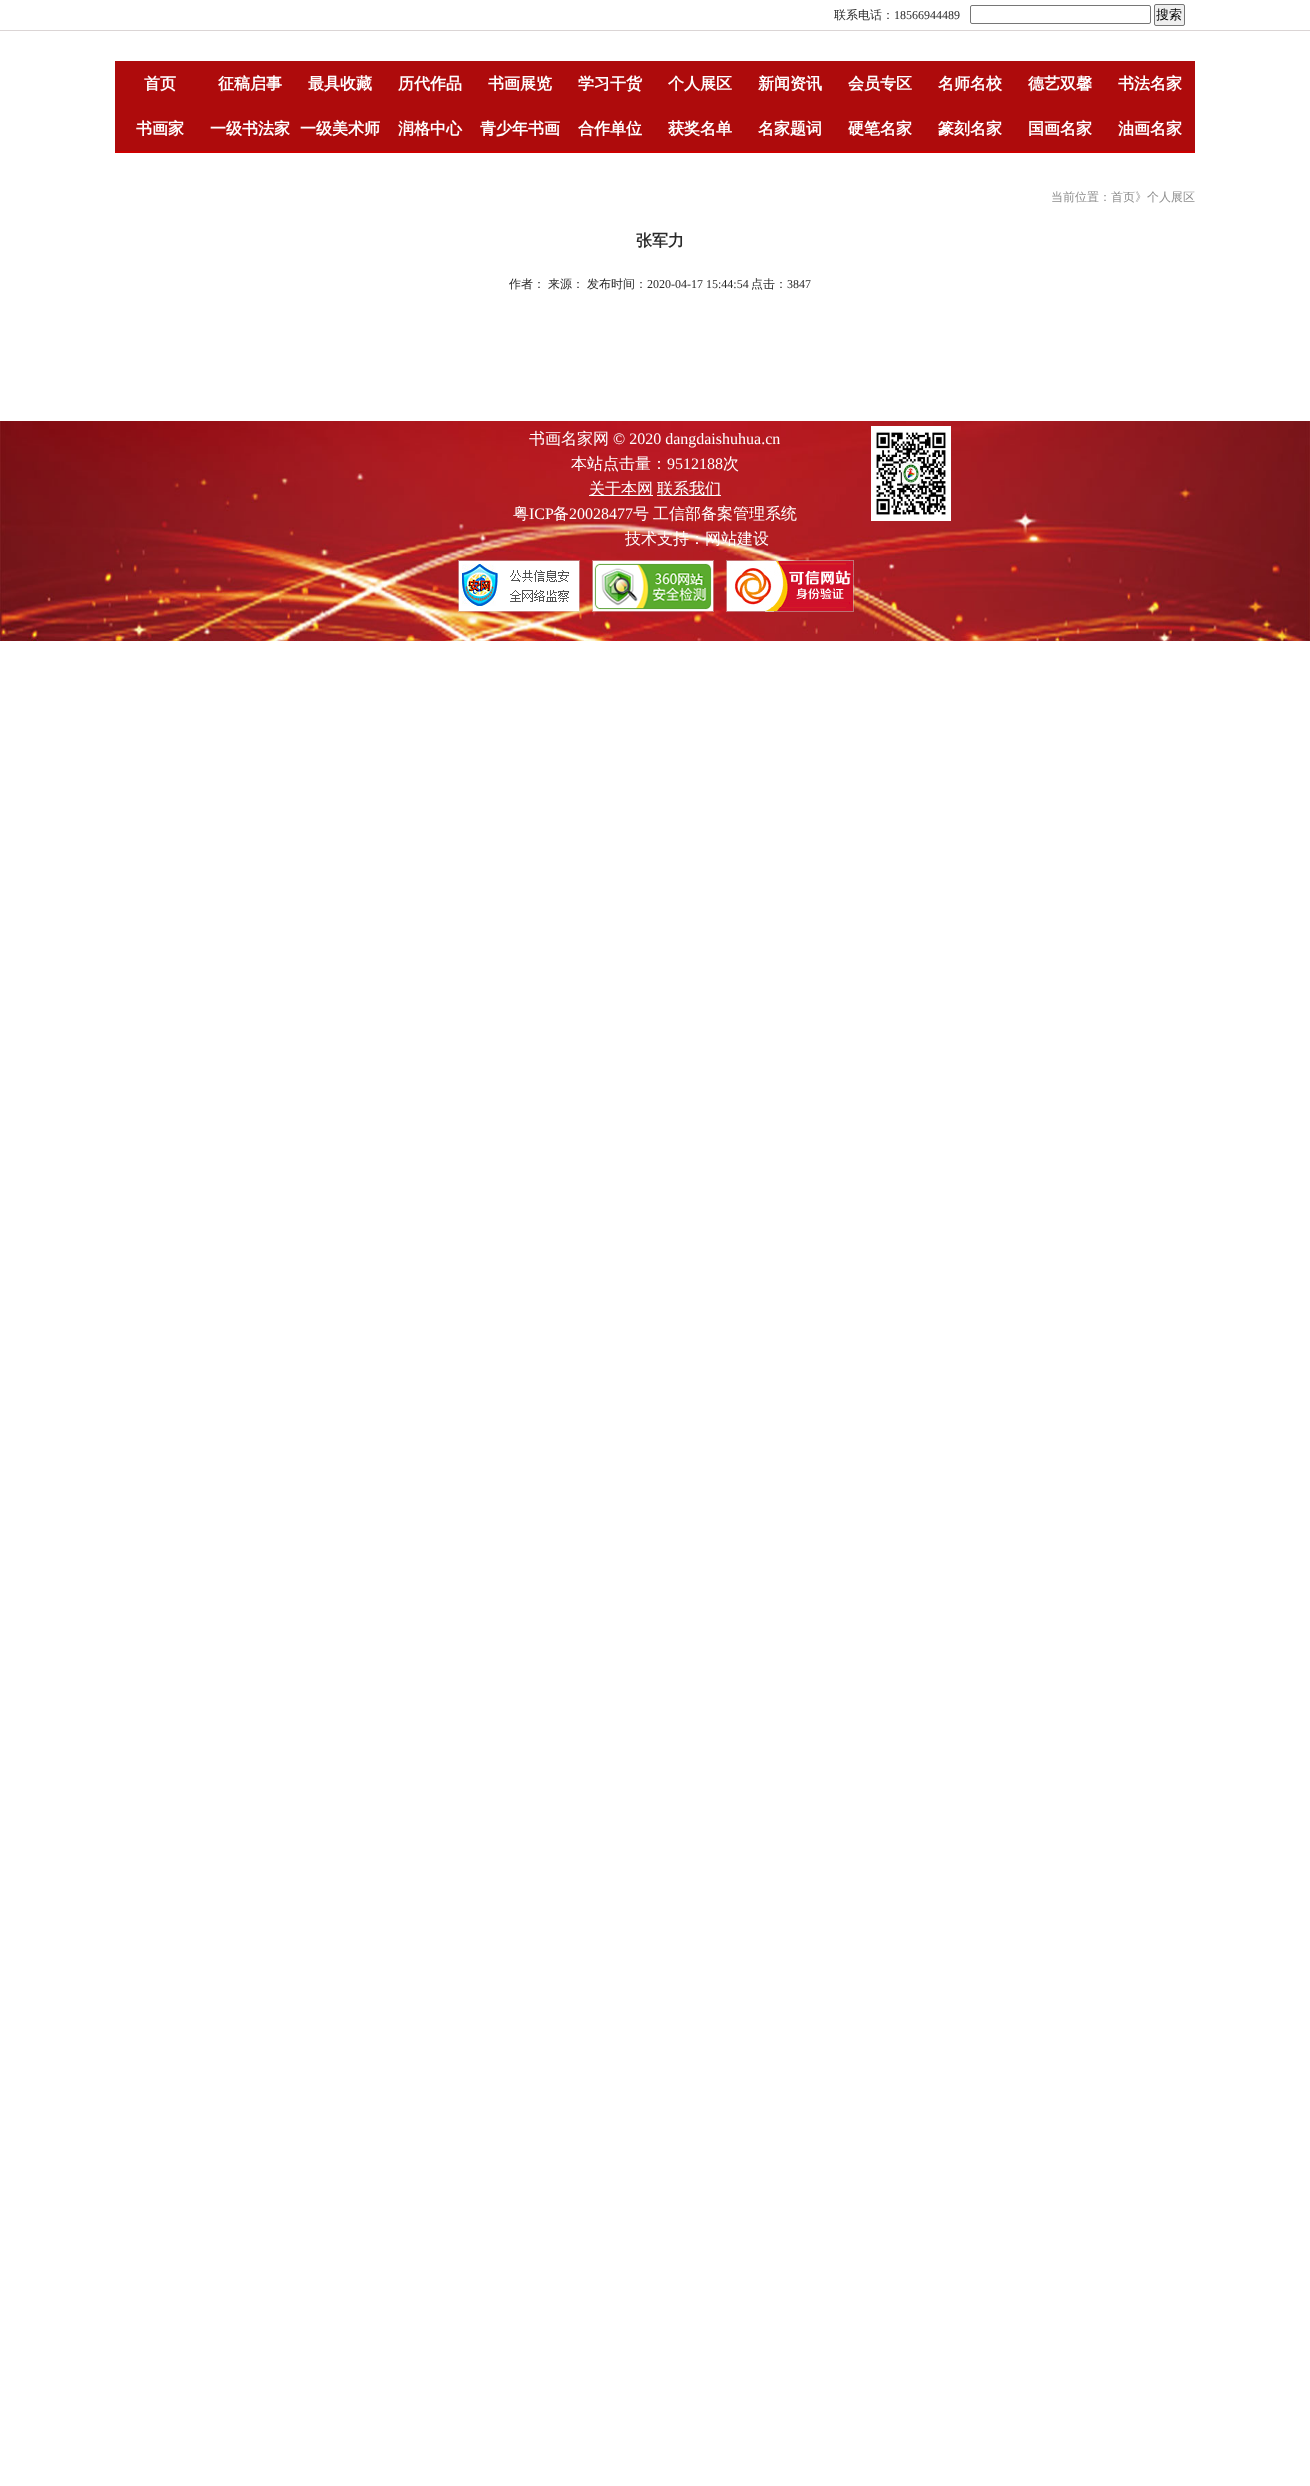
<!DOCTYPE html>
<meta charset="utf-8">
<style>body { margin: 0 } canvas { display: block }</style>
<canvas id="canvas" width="1310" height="2486"></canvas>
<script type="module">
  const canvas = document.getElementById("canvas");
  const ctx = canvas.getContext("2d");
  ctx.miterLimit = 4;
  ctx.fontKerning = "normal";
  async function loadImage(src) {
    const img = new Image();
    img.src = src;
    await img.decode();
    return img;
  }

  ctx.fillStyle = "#ffffff";
  ctx.fillRect(0, 0, 1310, 2486);
  ctx.fillStyle = "#dbd5d5";
  ctx.fillRect(0, 30, 1310, 1);
  ctx.font = "500 12px WenQuanYi Zen Hei";
  ctx.fillStyle = "#2a2a2a";
  ctx.fillText("联系电话：", 834, 19);
  ctx.font = "12px Liberation Serif";
  ctx.fillText("18566944489", 894, 19);
  ctx.beginPath();
  ctx.roundRect(970.5, 5.5, 180, 18, 1.5);
  ctx.strokeStyle = "#767676";
  ctx.stroke();
  ctx.fillStyle = "#efefef";
  ctx.beginPath();
  ctx.roundRect(1154.5, 4.5, 30, 21, 1.5);
  ctx.fill();
  ctx.stroke();
  ctx.font = "500 13px WenQuanYi Zen Hei";
  ctx.fillStyle = "#000000";
  ctx.fillText("搜索", 1156, 19);
  ctx.fillStyle = "#ae0b0c";
  ctx.fillRect(115, 61, 1080, 90);
  ctx.fillStyle = "#cc0000";
  ctx.fillRect(115, 151, 1080, 2);
  ctx.font = "bold 16px WenQuanYi Zen Hei";
  ctx.fillStyle = "#ffffff";
  ctx.fillText("首页", 144, 89);
  ctx.fillText("征稿启事", 218, 89);
  ctx.fillText("最具收藏", 308, 89);
  ctx.fillText("历代作品", 398, 89);
  ctx.fillText("书画展览", 488, 89);
  ctx.fillText("学习干货", 578, 89);
  ctx.fillText("个人展区", 668, 89);
  ctx.fillText("新闻资讯", 758, 89);
  ctx.fillText("会员专区", 848, 89);
  ctx.fillText("名师名校", 938, 89);
  ctx.fillText("德艺双馨", 1028, 89);
  ctx.fillText("书法名家", 1118, 89);
  ctx.fillText("书画家", 136, 134);
  ctx.fillText("一级书法家", 210, 134);
  ctx.fillText("一级美术师", 300, 134);
  ctx.fillText("润格中心", 398, 134);
  ctx.fillText("青少年书画", 480, 134);
  ctx.fillText("合作单位", 578, 134);
  ctx.fillText("获奖名单", 668, 134);
  ctx.fillText("名家题词", 758, 134);
  ctx.fillText("硬笔名家", 848, 134);
  ctx.fillText("篆刻名家", 938, 134);
  ctx.fillText("国画名家", 1028, 134);
  ctx.fillText("油画名家", 1118, 134);
  ctx.font = "500 12px WenQuanYi Zen Hei";
  ctx.fillStyle = "#8e8e8e";
  ctx.fillText("当前位置：首页》个人展区", 1051, 201);
  ctx.font = "bold 16px WenQuanYi Zen Hei";
  ctx.fillStyle = "#2a2a2a";
  ctx.fillText("张军力", 636, 246);
  ctx.font = "500 12px WenQuanYi Zen Hei";
  ctx.fillText("作者：", 509, 288);
  ctx.fillText("来源：", 548, 288);
  ctx.fillText("发布时间：", 587, 288);
  ctx.font = "12px Liberation Serif";
  ctx.fillText("2020-04-17 15:44:54", 647, 288);
  ctx.font = "500 12px WenQuanYi Zen Hei";
  ctx.fillText("点击：", 751, 288);
  ctx.font = "12px Liberation Serif";
  ctx.fillText("3847", 787, 288);
  ctx.drawImage(await loadImage("img1.png"), 0, 421, 1310, 220);
  ctx.font = "500 16px WenQuanYi Zen Hei";
  ctx.fillStyle = "#ffffff";
  ctx.fillText("书画名家网", 529, 444);
  ctx.font = "16px Liberation Serif";
  ctx.fillText("© 2020 dangdaishuhua.cn", 613, 444);
  ctx.drawImage(await loadImage("img2.png"), 871, 426, 80, 95);
  ctx.font = "500 16px WenQuanYi Zen Hei";
  ctx.fillText("本站点击量：", 571, 469);
  ctx.font = "16px Liberation Serif";
  ctx.fillText("9512188", 667, 469);
  ctx.font = "500 16px WenQuanYi Zen Hei";
  ctx.fillText("次", 723, 469);
  ctx.fillRect(589, 495, 64, 1);
  ctx.fillText("关于本网", 589, 494);
  ctx.fillRect(657, 495, 64, 1);
  ctx.fillText("联系我们", 657, 494);
  ctx.fillText("粤", 513, 519);
  ctx.font = "16px Liberation Serif";
  ctx.fillText("ICP", 529, 519);
  ctx.font = "500 16px WenQuanYi Zen Hei";
  ctx.fillText("备", 553, 519);
  ctx.font = "16px Liberation Serif";
  ctx.fillText("20028477", 569, 519);
  ctx.font = "500 16px WenQuanYi Zen Hei";
  ctx.fillText("号", 633, 519);
  ctx.fillText("工信部备案管理系统", 653, 519);
  ctx.fillText("技术支持：网站建设", 625, 544);
  ctx.drawImage(await loadImage("img3.png"), 458, 560, 396, 52);
</script>
